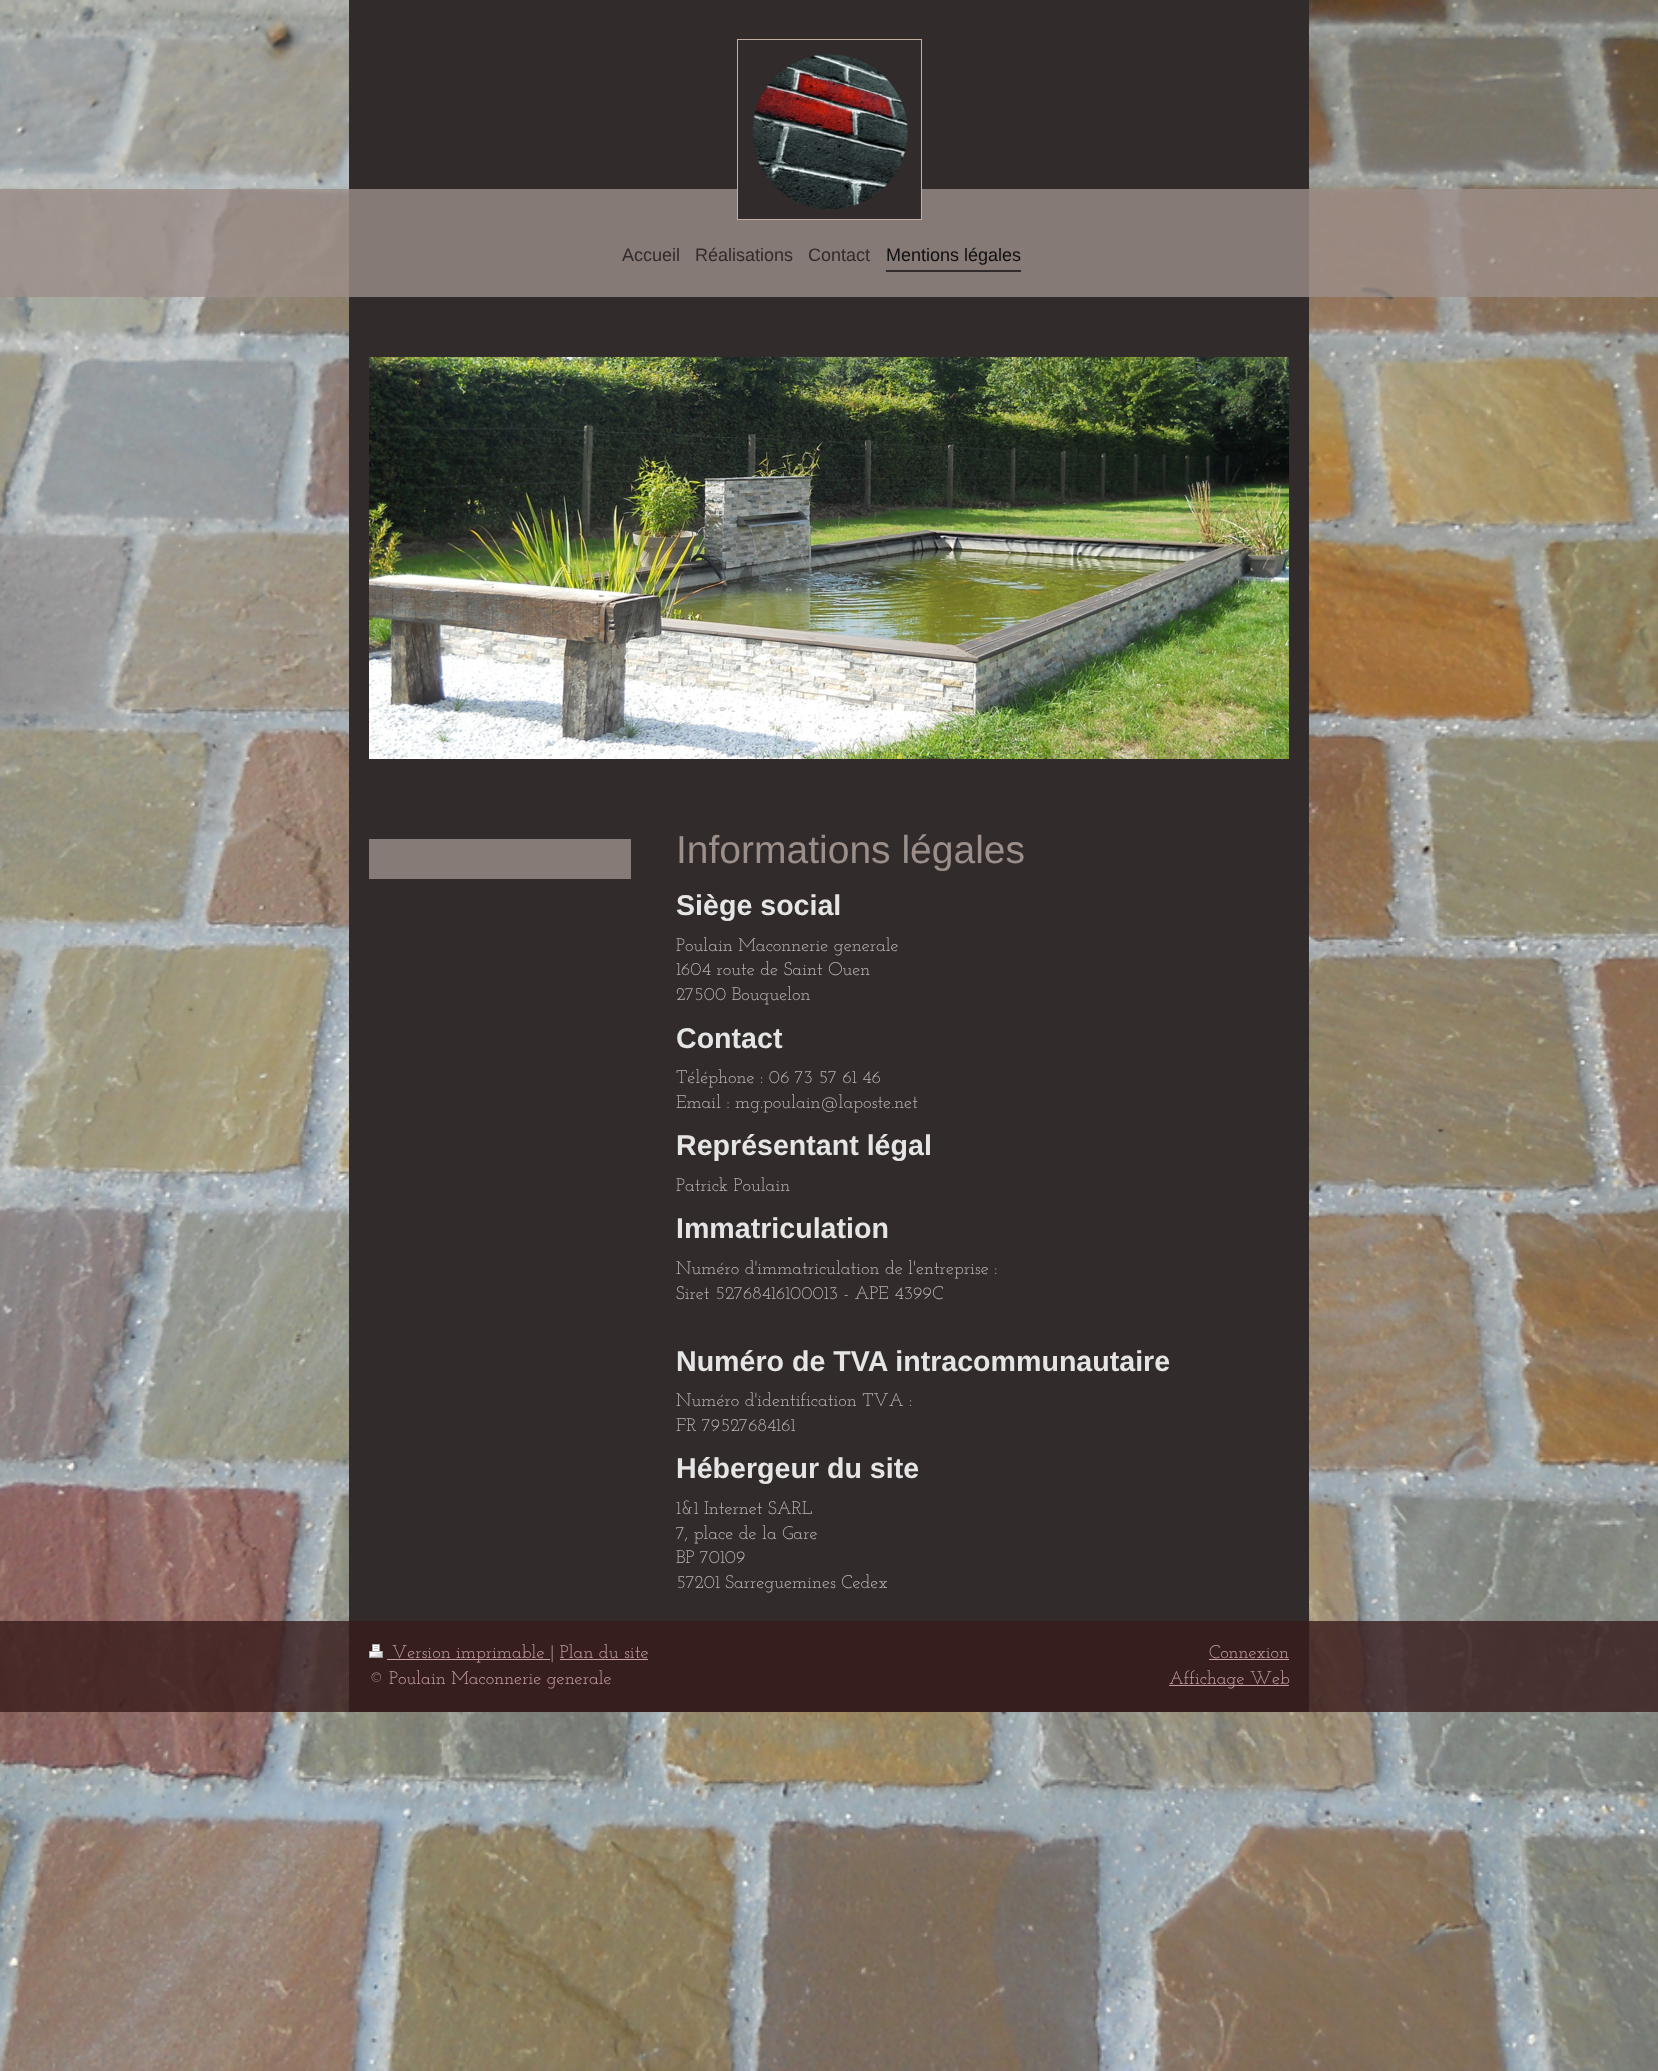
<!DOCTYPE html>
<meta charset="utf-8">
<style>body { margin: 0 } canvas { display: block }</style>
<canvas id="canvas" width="1658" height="2071"></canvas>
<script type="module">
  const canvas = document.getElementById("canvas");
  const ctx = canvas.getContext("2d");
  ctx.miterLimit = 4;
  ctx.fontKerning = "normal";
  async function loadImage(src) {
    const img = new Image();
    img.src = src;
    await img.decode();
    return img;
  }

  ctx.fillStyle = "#ffffff";
  ctx.fillRect(0, 0, 1658, 2071);
  ctx.drawImage(await loadImage("img1.png"), 0, 0, 1658, 2071);
  ctx.fillStyle = "#312b2b";
  ctx.fillRect(349, 0, 960, 1712);
  ctx.fillStyle = "rgba(156, 143, 138, 0.8)";
  ctx.fillRect(0, 189, 1658, 108);
  ctx.strokeStyle = "#c3aea0";
  ctx.strokeRect(737.5, 39.5, 184, 180);
  ctx.fillStyle = "#312b2b";
  ctx.fillRect(738, 189, 183, 30);
  ctx.drawImage(await loadImage("img2.png"), 752, 54, 156, 156);
  ctx.font = "18px Liberation Sans";
  ctx.fillText("Accueil", 622, 261);
  ctx.fillText("Réalisations", 695, 261);
  ctx.fillText("Contact", 808, 261);
  ctx.fillRect(886, 270, 135, 2);
  ctx.fillStyle = "#100e0e";
  ctx.fillText("Mentions légales", 886, 261);
  ctx.drawImage(await loadImage("img3.png"), 369, 357, 920, 402);
  ctx.fillStyle = "#877b77";
  ctx.fillRect(369, 839, 262, 40);
  ctx.font = "39px Liberation Sans";
  ctx.fillStyle = "#9c8f8a";
  ctx.fillText("Informations légales", 676, 863);
  ctx.font = "bold 28.6px Liberation Sans";
  ctx.fillStyle = "#e6e5e5";
  ctx.fillText("Siège social", 676, 915);
  ctx.font = "18.25px Josefin Slab";
  ctx.fillStyle = "#bbb4b4";
  ctx.fillText("Poulain Maconnerie generale", 676, 951);
  ctx.fillText("1604 route de Saint Ouen", 676, 975);
  ctx.fillText("27500 Bouquelon", 676, 1000);
  ctx.font = "bold 28.6px Liberation Sans";
  ctx.fillStyle = "#e6e5e5";
  ctx.fillText("Contact", 676, 1048);
  ctx.font = "18.25px Josefin Slab";
  ctx.fillStyle = "#bbb4b4";
  ctx.fillText("Téléphone : 06 73 57 61 46", 676, 1083);
  ctx.fillText("Email : mg.poulain@laposte.net", 676, 1108);
  ctx.font = "bold 28.6px Liberation Sans";
  ctx.fillStyle = "#e6e5e5";
  ctx.fillText("Représentant légal", 676, 1155);
  ctx.font = "18.25px Josefin Slab";
  ctx.fillStyle = "#bbb4b4";
  ctx.fillText("Patrick Poulain", 676, 1191);
  ctx.font = "bold 28.6px Liberation Sans";
  ctx.fillStyle = "#e6e5e5";
  ctx.fillText("Immatriculation", 676, 1238);
  ctx.font = "18.25px Josefin Slab";
  ctx.fillStyle = "#bbb4b4";
  ctx.fillText("Numéro d'immatriculation de l'entreprise :", 676, 1274);
  ctx.fillText("Siret 52768416100013 - APE 4399C", 676, 1299);
  ctx.font = "bold 28.6px Liberation Sans";
  ctx.fillStyle = "#e6e5e5";
  ctx.fillText("Numéro de TVA intracommunautaire", 676, 1371);
  ctx.font = "18.25px Josefin Slab";
  ctx.fillStyle = "#bbb4b4";
  ctx.fillText("Numéro d'identification TVA :", 676, 1406);
  ctx.fillText("FR 79527684161", 676, 1431);
  ctx.font = "bold 28.6px Liberation Sans";
  ctx.fillStyle = "#e6e5e5";
  ctx.fillText("Hébergeur du site", 676, 1478);
  ctx.font = "18.25px Josefin Slab";
  ctx.fillStyle = "#bbb4b4";
  ctx.fillText("1&1 Internet SARL", 676, 1514);
  ctx.fillText("7, place de la Gare", 676, 1539);
  ctx.fillText("BP 70109", 676, 1563);
  ctx.fillText("57201 Sarreguemines Cedex", 676, 1588);
  ctx.fillStyle = "rgba(56, 28, 28, 0.8)";
  ctx.fillRect(0, 1621, 1658, 91);
  ctx.drawImage(await loadImage("img4.png"), 369, 1644, 14, 14);
  ctx.fillStyle = "#c7a0a0";
  ctx.fillRect(387, 1659, 163, 1);
  ctx.fillText("Version imprimable | Plan du site", 392, 1658);
  ctx.fillRect(560, 1659, 88, 1);
  ctx.fillText("© Poulain Maconnerie generale", 369, 1684);
  ctx.fillText("Connexion", 1209, 1658);
  ctx.fillRect(1209, 1659, 80, 1);
  ctx.fillRect(1169, 1685, 120, 1);
  ctx.fillText("Affichage Web", 1169, 1684);
</script>
